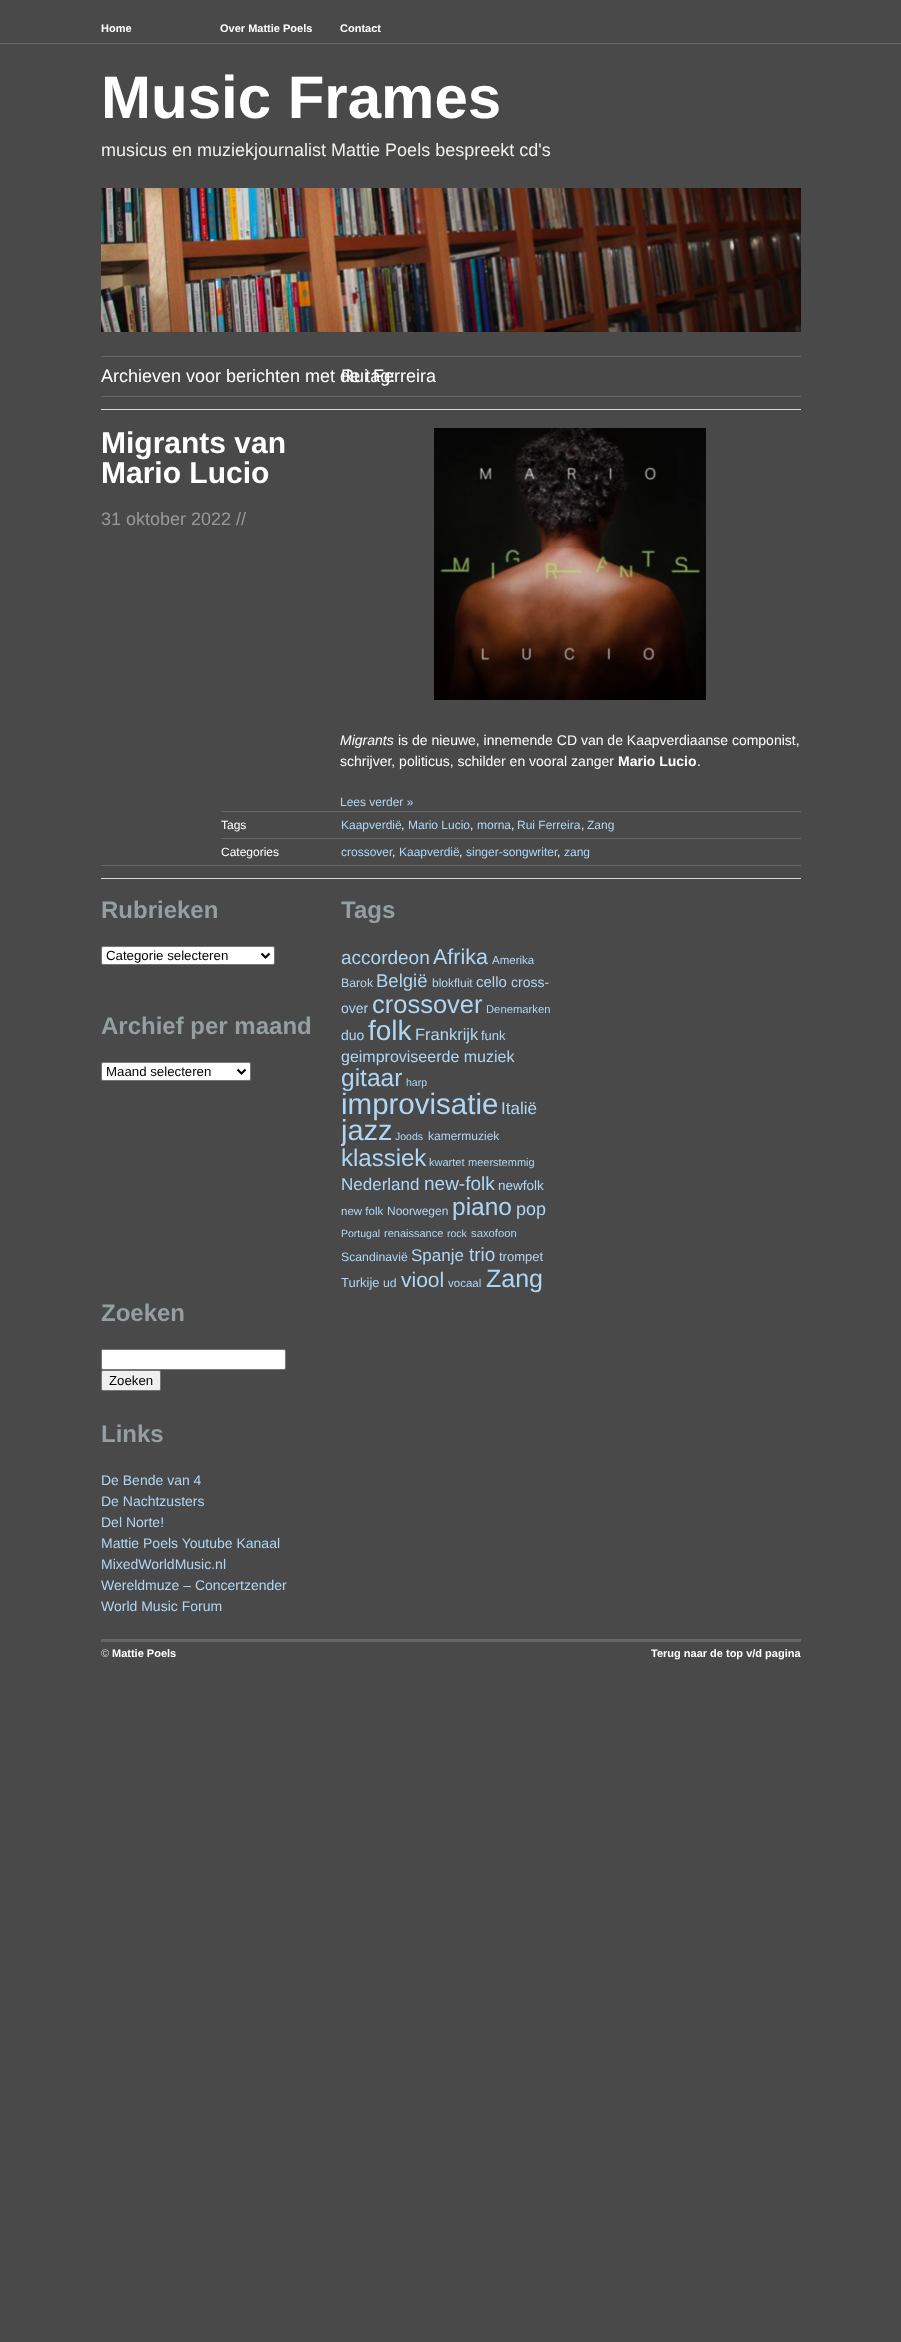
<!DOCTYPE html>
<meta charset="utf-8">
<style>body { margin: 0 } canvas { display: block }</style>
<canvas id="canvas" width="901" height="2342"></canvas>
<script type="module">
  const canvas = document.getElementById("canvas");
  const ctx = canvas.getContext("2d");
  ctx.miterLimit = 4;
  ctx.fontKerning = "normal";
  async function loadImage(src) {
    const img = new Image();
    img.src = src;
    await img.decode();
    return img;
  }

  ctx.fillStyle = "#494949";
  ctx.fillRect(0, 0, 901, 2342);
  ctx.fillStyle = "#666666";
  ctx.fillRect(0, 43, 901, 1);
  ctx.font = "bold 11px Liberation Sans";
  ctx.fillStyle = "#ffffff";
  ctx.fillText("Home", 101, 32);
  ctx.fillText("Over Mattie Poels", 220, 32);
  ctx.fillText("Contact", 340, 32);
  ctx.font = "bold 60px Liberation Sans";
  ctx.fillText("Music Frames", 101, 118);
  ctx.font = "18px Liberation Sans";
  ctx.fillStyle = "#f1efeb";
  ctx.fillText("musicus en muziekjournalist Mattie Poels bespreekt cd's", 101, 156);
  ctx.drawImage(await loadImage("img1.png"), 101, 188, 700, 144);
  ctx.fillStyle = "#666666";
  ctx.fillRect(101, 356, 700, 1);
  ctx.fillStyle = "#ffffff";
  ctx.fillText("Archieven voor berichten met de tag:", 101, 382);
  ctx.fillText("Rui Ferreira", 341, 382);
  ctx.fillStyle = "#666666";
  ctx.fillRect(101, 396, 700, 1);
  ctx.fillStyle = "#d1d9dc";
  ctx.fillRect(101, 409, 700, 1);
  ctx.font = "bold 30px Liberation Sans";
  ctx.fillStyle = "#ffffff";
  ctx.fillText("Migrants van", 101, 453);
  ctx.fillText("Mario Lucio", 101, 483);
  ctx.font = "18px Liberation Sans";
  ctx.fillStyle = "#999999";
  ctx.fillText("31 oktober 2022 //", 101, 525);
  ctx.drawImage(await loadImage("img2.png"), 434, 428, 272, 272);
  ctx.font = "italic 14px Liberation Sans";
  ctx.fillStyle = "#ffffff";
  ctx.fillText("Migrants", 340, 745);
  ctx.font = "14px Liberation Sans";
  ctx.fillText("is de nieuwe, innemende CD van de Kaapverdiaanse componist,", 398, 745);
  ctx.fillText("schrijver, politicus, schilder en vooral zanger", 340, 766);
  ctx.font = "bold 14px Liberation Sans";
  ctx.fillText("Mario Lucio", 618, 766);
  ctx.font = "14px Liberation Sans";
  ctx.fillText(".", 697, 766);
  ctx.font = "12px Liberation Sans";
  ctx.fillStyle = "#afd7f5";
  ctx.fillText("Lees verder »", 340, 806);
  ctx.fillStyle = "#666666";
  ctx.fillRect(221, 811, 580, 1);
  ctx.fillStyle = "#ffffff";
  ctx.fillText("Tags", 221, 829);
  ctx.fillStyle = "#afd7f5";
  ctx.fillText("Kaapverdië", 341, 829);
  ctx.fillStyle = "#ffffff";
  ctx.fillText(",", 401, 829);
  ctx.fillStyle = "#afd7f5";
  ctx.fillText("Mario Lucio", 408, 829);
  ctx.fillStyle = "#ffffff";
  ctx.fillText(",", 470, 829);
  ctx.fillStyle = "#afd7f5";
  ctx.fillText("morna", 477, 829);
  ctx.fillStyle = "#ffffff";
  ctx.fillText(",", 511, 829);
  ctx.fillStyle = "#afd7f5";
  ctx.fillText("Rui Ferreira", 517, 829);
  ctx.fillStyle = "#ffffff";
  ctx.fillText(",", 581, 829);
  ctx.fillStyle = "#afd7f5";
  ctx.fillText("Zang", 587, 829);
  ctx.fillStyle = "#666666";
  ctx.fillRect(221, 838, 580, 1);
  ctx.fillStyle = "#ffffff";
  ctx.fillText("Categories", 221, 856);
  ctx.fillStyle = "#afd7f5";
  ctx.fillText("crossover", 341, 856);
  ctx.fillStyle = "#ffffff";
  ctx.fillText(",", 392, 856);
  ctx.fillStyle = "#afd7f5";
  ctx.fillText("Kaapverdië", 399, 856);
  ctx.fillStyle = "#ffffff";
  ctx.fillText(",", 459, 856);
  ctx.fillStyle = "#afd7f5";
  ctx.fillText("singer-songwriter", 466, 856);
  ctx.fillStyle = "#ffffff";
  ctx.fillText(",", 557, 856);
  ctx.fillStyle = "#afd7f5";
  ctx.fillText("zang", 564, 856);
  ctx.fillStyle = "#666666";
  ctx.fillRect(101, 865, 700, 1);
  ctx.fillStyle = "#d1d9dc";
  ctx.fillRect(101, 878, 700, 1);
  ctx.font = "bold 24px Liberation Sans";
  ctx.fillStyle = "#959ea1";
  ctx.fillText("Rubrieken", 101, 918);
  ctx.fillStyle = "#ffffff";
  ctx.beginPath();
  ctx.roundRect(101.5, 946.5, 173, 18, 1.5);
  ctx.fill();
  ctx.strokeStyle = "#767676";
  ctx.stroke();
  ctx.beginPath();
  ctx.moveTo(261.5, 953.5);
  ctx.lineTo(265.5, 957.5);
  ctx.lineTo(269.5, 953.5);
  ctx.strokeStyle = "#000000";
  ctx.lineWidth = 2;
  ctx.stroke();
  ctx.font = "13.25px Liberation Sans";
  ctx.fillStyle = "#000000";
  ctx.fillText("Categorie selecteren", 106, 960);
  ctx.font = "bold 24px Liberation Sans";
  ctx.fillStyle = "#959ea1";
  ctx.fillText("Archief per maand", 101, 1034);
  ctx.fillStyle = "#ffffff";
  ctx.beginPath();
  ctx.roundRect(101.5, 1062.5, 149, 18, 1.5);
  ctx.fill();
  ctx.strokeStyle = "#767676";
  ctx.lineWidth = 1;
  ctx.stroke();
  ctx.beginPath();
  ctx.moveTo(237.5, 1069.5);
  ctx.lineTo(241.5, 1073.5);
  ctx.lineTo(245.5, 1069.5);
  ctx.strokeStyle = "#000000";
  ctx.lineWidth = 2;
  ctx.stroke();
  ctx.font = "13.25px Liberation Sans";
  ctx.fillStyle = "#000000";
  ctx.fillText("Maand selecteren", 106, 1076);
  ctx.save();
  ctx.beginPath();
  ctx.rect(341, 891, 220, 403);
  ctx.clip();
  ctx.font = "bold 24px Liberation Sans";
  ctx.fillStyle = "#959ea1";
  ctx.fillText("Tags", 341, 918);
  ctx.restore();
  ctx.font = "19px Liberation Sans";
  ctx.fillStyle = "#afd7f5";
  ctx.fillText("accordeon", 341, 964);
  ctx.font = "21.5px Liberation Sans";
  ctx.fillText("Afrika", 433, 964);
  ctx.font = "11.5px Liberation Sans";
  ctx.fillText("Amerika", 492, 964);
  ctx.font = "12.25px Liberation Sans";
  ctx.fillText("Barok", 341, 987);
  ctx.font = "18.5px Liberation Sans";
  ctx.fillText("België", 376, 987);
  ctx.font = "12px Liberation Sans";
  ctx.fillText("blokfluit", 432, 987);
  ctx.font = "15px Liberation Sans";
  ctx.fillText("cello", 476, 987);
  ctx.font = "14px Liberation Sans";
  ctx.fillText("cross-", 511, 987);
  ctx.fillText("over", 341, 1013);
  ctx.font = "25.5px Liberation Sans";
  ctx.fillText("crossover", 372, 1013);
  ctx.font = "11.25px Liberation Sans";
  ctx.fillText("Denemarken", 486, 1013);
  ctx.font = "14px Liberation Sans";
  ctx.fillText("duo", 341, 1040);
  ctx.font = "28px Liberation Sans";
  ctx.fillText("folk", 368, 1040);
  ctx.font = "16.5px Liberation Sans";
  ctx.fillText("Frankrijk", 415, 1040);
  ctx.font = "13px Liberation Sans";
  ctx.fillText("funk", 481, 1040);
  ctx.font = "16px Liberation Sans";
  ctx.fillText("geimproviseerde muziek", 341, 1062);
  ctx.font = "24.5px Liberation Sans";
  ctx.fillText("gitaar", 341, 1086);
  ctx.font = "10.5px Liberation Sans";
  ctx.fillText("harp", 406, 1086);
  ctx.font = "29.5px Liberation Sans";
  ctx.fillText("improvisatie", 341, 1114);
  ctx.font = "17px Liberation Sans";
  ctx.fillText("Italië", 501, 1114);
  ctx.save();
  ctx.beginPath();
  ctx.rect(341, 891, 220, 403);
  ctx.clip();
  ctx.font = "29px Liberation Sans";
  ctx.fillText("jazz", 341, 1140);
  ctx.restore();
  ctx.font = "10.5px Liberation Sans";
  ctx.fillText("Joods", 395, 1140);
  ctx.font = "12px Liberation Sans";
  ctx.fillText("kamermuziek", 428, 1140);
  ctx.font = "24px Liberation Sans";
  ctx.fillText("klassiek", 341, 1166);
  ctx.font = "11px Liberation Sans";
  ctx.fillText("kwartet", 429, 1166);
  ctx.fillText("meerstemmig", 468, 1166);
  ctx.font = "17px Liberation Sans";
  ctx.fillText("Nederland", 341, 1190);
  ctx.font = "19px Liberation Sans";
  ctx.fillText("new-folk", 424, 1190);
  ctx.font = "13.5px Liberation Sans";
  ctx.fillText("newfolk", 498, 1190);
  ctx.font = "11.5px Liberation Sans";
  ctx.fillText("new folk", 341, 1215);
  ctx.font = "12px Liberation Sans";
  ctx.fillText("Noorwegen", 387, 1215);
  ctx.font = "24.5px Liberation Sans";
  ctx.fillText("piano", 452, 1215);
  ctx.font = "18px Liberation Sans";
  ctx.fillText("pop", 516, 1215);
  ctx.font = "10.5px Liberation Sans";
  ctx.fillText("Portugal", 341, 1237);
  ctx.font = "11px Liberation Sans";
  ctx.fillText("renaissance", 384, 1237);
  ctx.font = "10.5px Liberation Sans";
  ctx.fillText("rock", 447, 1237);
  ctx.font = "11.25px Liberation Sans";
  ctx.fillText("saxofoon", 471, 1237);
  ctx.font = "12.25px Liberation Sans";
  ctx.fillText("Scandinavië", 341, 1261);
  ctx.font = "17px Liberation Sans";
  ctx.fillText("Spanje", 411, 1261);
  ctx.font = "19px Liberation Sans";
  ctx.fillText("trio", 469, 1261);
  ctx.font = "13px Liberation Sans";
  ctx.fillText("trompet", 499, 1261);
  ctx.fillText("Turkije", 341, 1287);
  ctx.font = "12.25px Liberation Sans";
  ctx.fillText("ud", 383, 1287);
  ctx.font = "21px Liberation Sans";
  ctx.fillText("viool", 401, 1287);
  ctx.font = "11.5px Liberation Sans";
  ctx.fillText("vocaal", 448, 1287);
  ctx.font = "25px Liberation Sans";
  ctx.fillText("Zang", 486, 1287);
  ctx.font = "bold 24px Liberation Sans";
  ctx.fillStyle = "#959ea1";
  ctx.fillText("Zoeken", 101, 1321);
  ctx.fillStyle = "#ffffff";
  ctx.beginPath();
  ctx.roundRect(101.5, 1349.5, 184, 20, 1.5);
  ctx.fill();
  ctx.strokeStyle = "#767676";
  ctx.lineWidth = 1;
  ctx.stroke();
  ctx.fillStyle = "#efefef";
  ctx.beginPath();
  ctx.roundRect(101.5, 1370.5, 59, 20, 1.5);
  ctx.fill();
  ctx.stroke();
  ctx.font = "13.25px Liberation Sans";
  ctx.fillStyle = "#000000";
  ctx.fillText("Zoeken", 109, 1385);
  ctx.font = "bold 24px Liberation Sans";
  ctx.fillStyle = "#959ea1";
  ctx.fillText("Links", 101, 1442);
  ctx.font = "14px Liberation Sans";
  ctx.fillStyle = "#afd7f5";
  ctx.fillText("De Bende van 4", 101, 1485);
  ctx.fillText("De Nachtzusters", 101, 1506);
  ctx.fillText("Del Norte!", 101, 1527);
  ctx.fillText("Mattie Poels Youtube Kanaal", 101, 1548);
  ctx.fillText("MixedWorldMusic.nl", 101, 1569);
  ctx.fillText("Wereldmuze – Concertzender", 101, 1590);
  ctx.fillText("World Music Forum", 101, 1611);
  ctx.fillStyle = "#666666";
  ctx.fillRect(101, 1639, 700, 3);
  ctx.save();
  ctx.beginPath();
  ctx.rect(101, 878, 700, 803);
  ctx.clip();
  ctx.font = "11px Liberation Sans";
  ctx.fillStyle = "#d1d9dc";
  ctx.fillText("©", 101, 1657);
  ctx.restore();
  ctx.font = "bold 11px Liberation Sans";
  ctx.fillStyle = "#ffffff";
  ctx.fillText("Mattie Poels", 112, 1657);
  ctx.fillText("Terug naar de top v/d pagina", 651, 1657);
</script>
